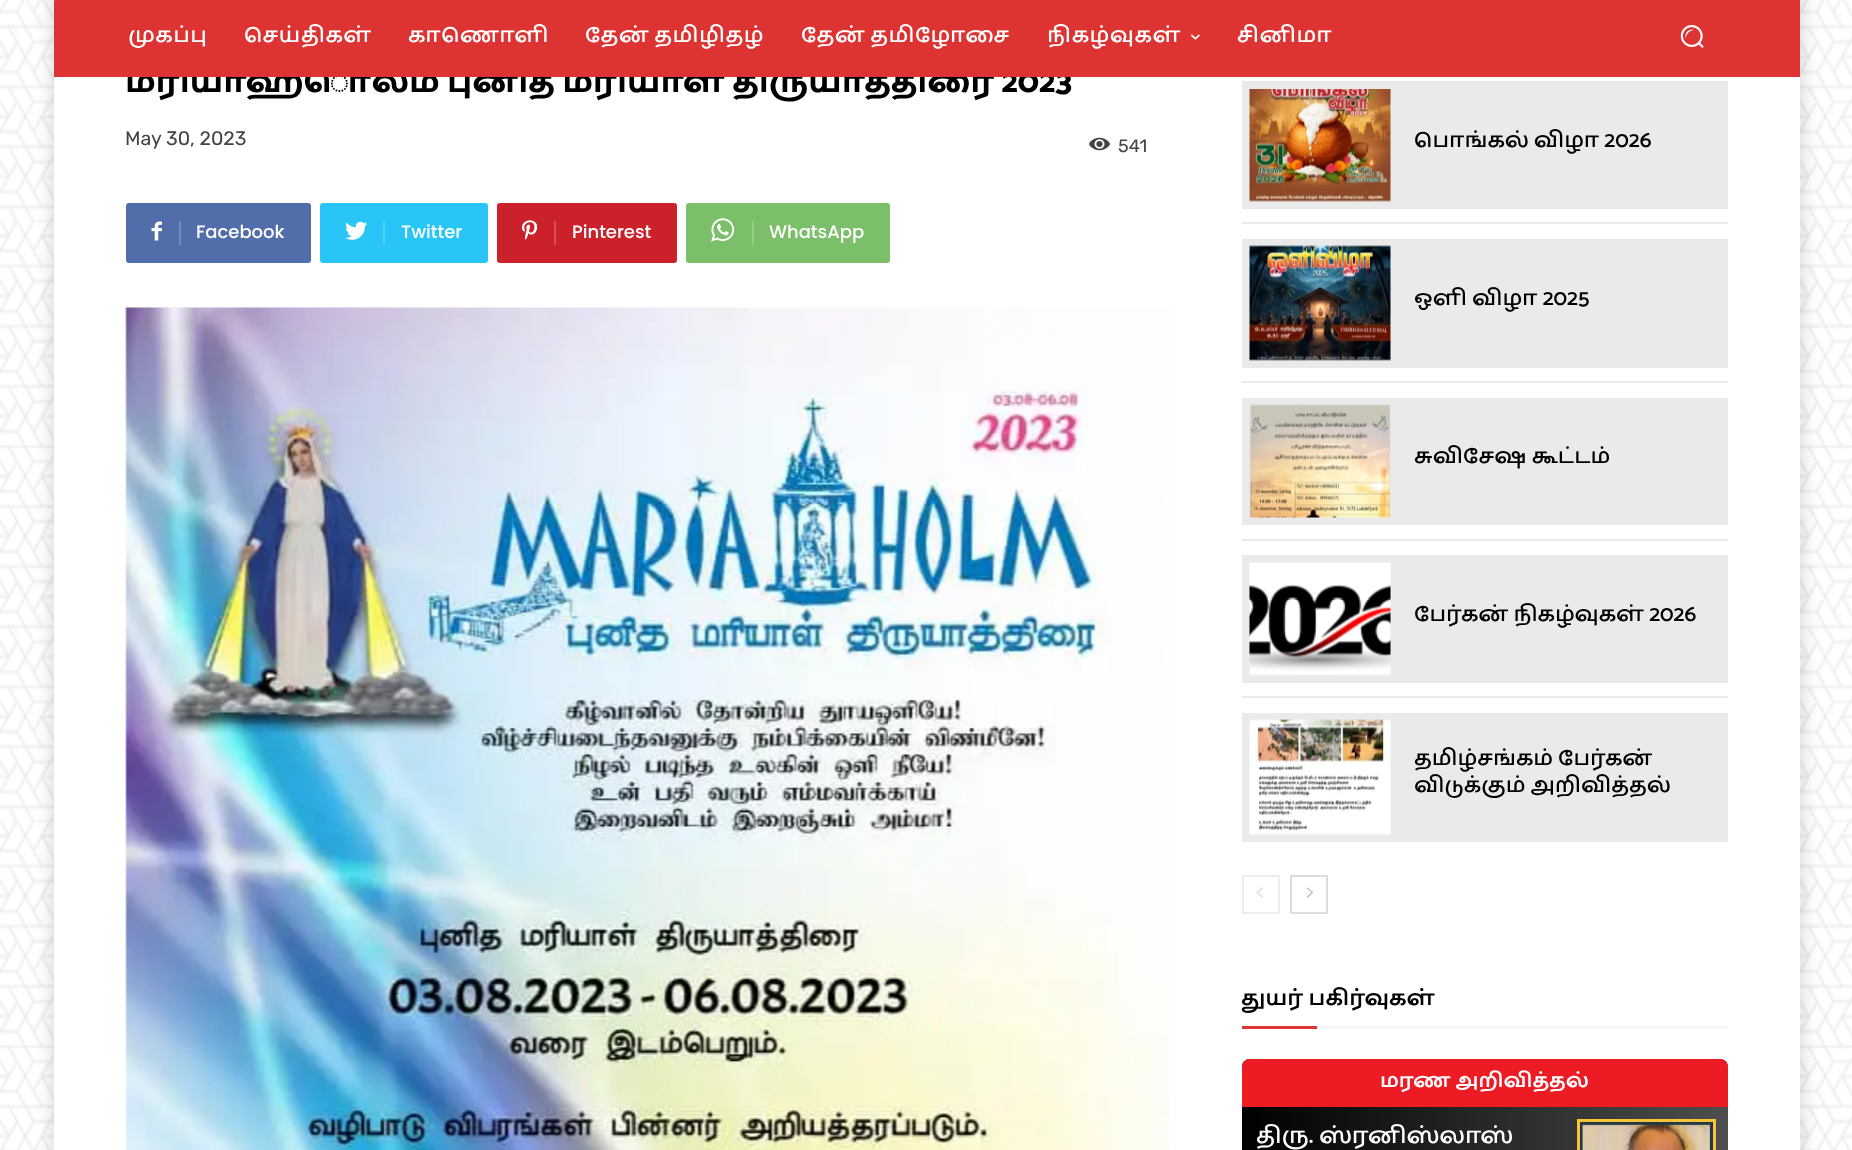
<!DOCTYPE html>
<meta charset="utf-8">
<style>body { margin: 0 } canvas { display: block }</style>
<canvas id="canvas" width="1852" height="1150"></canvas>
<script type="module">
  const canvas = document.getElementById("canvas");
  const ctx = canvas.getContext("2d");
  ctx.miterLimit = 4;
  ctx.fontKerning = "normal";
  async function loadImage(src) {
    const img = new Image();
    img.src = src;
    await img.decode();
    return img;
  }
  let gradient;

  ctx.fillStyle = "#ffffff";
  ctx.fillRect(0, 0, 1852, 1150);
  ctx.drawImage(await loadImage("img1.png"), 0, 0, 1852, 1150);
  ctx.fillStyle = "rgba(0, 0, 0, 0.12)";
  ctx.filter = "blur(7.5px)";
  ctx.beginPath();
  ctx.rect(50, -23, 1755, 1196);
  ctx.fill();
  ctx.filter = "none";
  ctx.fillStyle = "#ffffff";
  ctx.fillRect(54, 77, 1746, 1073);
  ctx.font = "800 33px Catamaran";
  ctx.fillStyle = "#000000";
  ctx.fillText("மரியாஹொல்ம் புனித மரியாள் திருயாத்திரை 2023", 125, 92);
  ctx.fillStyle = "#dd3333";
  ctx.fillRect(54, 0, 1746, 77);
  ctx.letterSpacing = "0.6px";
  ctx.font = "600 22.5px Catamaran";
  ctx.fillStyle = "#ffffff";
  ctx.fillText("முகப்பு", 128, 42);
  ctx.fillText("செய்திகள்", 244, 42);
  ctx.fillText("காணொளி", 408, 42);
  ctx.wordSpacing = "-1px";
  ctx.fillText("தேன் தமிழிதழ்", 585, 42);
  ctx.fillText("தேன் தமிழோசை", 801, 42);
  ctx.wordSpacing = "0px";
  ctx.fillText("நிகழ்வுகள்", 1047, 42);
  ctx.drawImage(await loadImage("img2.png"), 1191, 34, 9, 6);
  ctx.fillText("சினிமா", 1237, 42);
  ctx.drawImage(await loadImage("img3.png"), 1680, 25, 24, 23);
  ctx.letterSpacing = "0px";
  ctx.font = "19.5px Rubik";
  ctx.fillStyle = "#444444";
  ctx.fillText("May 30, 2023", 125, 145);
  ctx.drawImage(await loadImage("img4.png"), 1089, 137, 21, 14);
  ctx.font = "18px Rubik";
  ctx.fillText("541", 1118, 152);
  ctx.fillStyle = "#516eab";
  ctx.beginPath();
  ctx.roundRect(179, 203, 132, 60, [0, 3, 3, 0]);
  ctx.fill();
  ctx.beginPath();
  ctx.roundRect(126, 203, 62, 60, [3, 0, 0, 3]);
  ctx.fill();
  ctx.drawImage(await loadImage("img5.png"), 151, 221, 11, 20);
  ctx.fillStyle = "#748bbc";
  ctx.fillRect(179, 221, 2, 24);
  ctx.font = "500 18px Poppins";
  ctx.fillStyle = "#ffffff";
  ctx.fillText("Facebook", 196, 238);
  ctx.fillStyle = "#29c5f6";
  ctx.beginPath();
  ctx.roundRect(383, 203, 105, 60, [0, 3, 3, 0]);
  ctx.fill();
  ctx.beginPath();
  ctx.roundRect(320, 203, 72, 60, [3, 0, 0, 3]);
  ctx.fill();
  ctx.drawImage(await loadImage("img6.png"), 345, 221, 22, 19);
  ctx.fillStyle = "#54d1f8";
  ctx.fillRect(383, 221, 2, 24);
  ctx.fillStyle = "#ffffff";
  ctx.fillText("Twitter", 401, 238);
  ctx.fillStyle = "#ca212a";
  ctx.beginPath();
  ctx.roundRect(554, 203, 123, 60, [0, 3, 3, 0]);
  ctx.fill();
  ctx.beginPath();
  ctx.roundRect(497, 203, 66, 60, [3, 0, 0, 3]);
  ctx.fill();
  ctx.drawImage(await loadImage("img7.png"), 522, 220, 16, 20);
  ctx.fillStyle = "#d54d55";
  ctx.fillRect(554, 221, 2, 24);
  ctx.fillStyle = "#ffffff";
  ctx.fillText("Pinterest", 572, 238);
  ctx.fillStyle = "#7bbf6a";
  ctx.beginPath();
  ctx.roundRect(752, 203, 138, 60, [0, 3, 3, 0]);
  ctx.fill();
  ctx.beginPath();
  ctx.roundRect(686, 203, 75, 60, [3, 0, 0, 3]);
  ctx.fill();
  ctx.drawImage(await loadImage("img8.png"), 711, 218, 24, 24);
  ctx.fillStyle = "#95cc88";
  ctx.fillRect(752, 221, 2, 24);
  ctx.fillStyle = "#ffffff";
  ctx.fillText("WhatsApp", 769, 238);
  ctx.drawImage(await loadImage("img9.png"), 125, 307, 1046, 843);
  ctx.fillStyle = "#eaeaea";
  ctx.fillRect(1242, 81, 486, 128);
  ctx.drawImage(await loadImage("img10.png"), 1249, 89, 142, 113);
  ctx.font = "600 22.5px Catamaran";
  ctx.fillStyle = "#000000";
  ctx.fillText("பொங்கல் விழா 2026", 1414, 147);
  ctx.fillStyle = "#eaeaea";
  ctx.fillRect(1242, 222, 486, 2);
  ctx.fillRect(1242, 239, 486, 129);
  ctx.drawImage(await loadImage("img11.png"), 1249, 245, 142, 116);
  ctx.fillStyle = "#000000";
  ctx.fillText("ஒளி விழா 2025", 1414, 305);
  ctx.fillStyle = "#eaeaea";
  ctx.fillRect(1242, 381, 486, 2);
  ctx.fillRect(1242, 398, 486, 127);
  ctx.drawImage(await loadImage("img12.png"), 1249, 404, 142, 114);
  ctx.fillStyle = "#000000";
  ctx.fillText("சுவிசேஷ கூட்டம்", 1414, 463);
  ctx.fillStyle = "#eaeaea";
  ctx.fillRect(1242, 539, 486, 2);
  ctx.fillRect(1242, 555, 486, 128);
  ctx.drawImage(await loadImage("img13.png"), 1249, 562, 142, 114);
  ctx.fillStyle = "#000000";
  ctx.fillText("பேர்கன் நிகழ்வுகள் 2026", 1414, 621);
  ctx.fillStyle = "#eaeaea";
  ctx.fillRect(1242, 696, 486, 2);
  ctx.fillRect(1242, 713, 486, 129);
  ctx.drawImage(await loadImage("img14.png"), 1249, 719, 142, 116);
  ctx.fillStyle = "#000000";
  ctx.fillText("தமிழ்சங்கம் பேர்கன்", 1414, 765);
  ctx.fillText("விடுக்கும் அறிவித்தல்", 1414, 792);
  ctx.strokeStyle = "#eeeeee";
  ctx.lineWidth = 2;
  ctx.strokeRect(1243, 876, 36, 37);
  ctx.drawImage(await loadImage("img15.png"), 1256, 887, 7, 11);
  ctx.strokeStyle = "#dcdcdc";
  ctx.strokeRect(1291, 876, 36, 37);
  ctx.drawImage(await loadImage("img16.png"), 1306, 887, 7, 11);
  ctx.font = "bold 22.5px Catamaran";
  ctx.fillText("துயர் பகிர்வுகள்", 1241, 1005);
  ctx.fillStyle = "#dd3333";
  ctx.fillRect(1242, 1026, 75, 3);
  ctx.fillStyle = "#f5f5f5";
  ctx.fillRect(1317, 1026, 411, 3);
  gradient = ctx.createLinearGradient(1728, 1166, 1242, 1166);
  gradient.addColorStop(0, "#4e4e4e");
  gradient.addColorStop(1, "#000000");
  ctx.fillStyle = gradient;
  ctx.beginPath();
  ctx.roundRect(1242, 1059, 486, 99, 8);
  ctx.fill();
  ctx.fillStyle = "#ed1c24";
  ctx.beginPath();
  ctx.roundRect(1242, 1059, 486, 48, [8, 8, 0, 0]);
  ctx.fill();
  ctx.font = "bold 21px Catamaran";
  ctx.fillStyle = "#ffffff";
  ctx.fillText("மரண அறிவித்தல்", 1380, 1087);
  ctx.font = "600 24px Catamaran";
  ctx.fillText("திரு. ஸ்ரனிஸ்லாஸ்", 1256, 1143);
  ctx.strokeStyle = "#f7c435";
  ctx.lineWidth = 3;
  ctx.strokeRect(1578.5, 1120.5, 136, 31);
  ctx.strokeStyle = "#233844";
  ctx.strokeRect(1581.5, 1123.5, 130, 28);
  ctx.drawImage(await loadImage("img17.png"), 1582, 1124, 128, 26);
</script>
